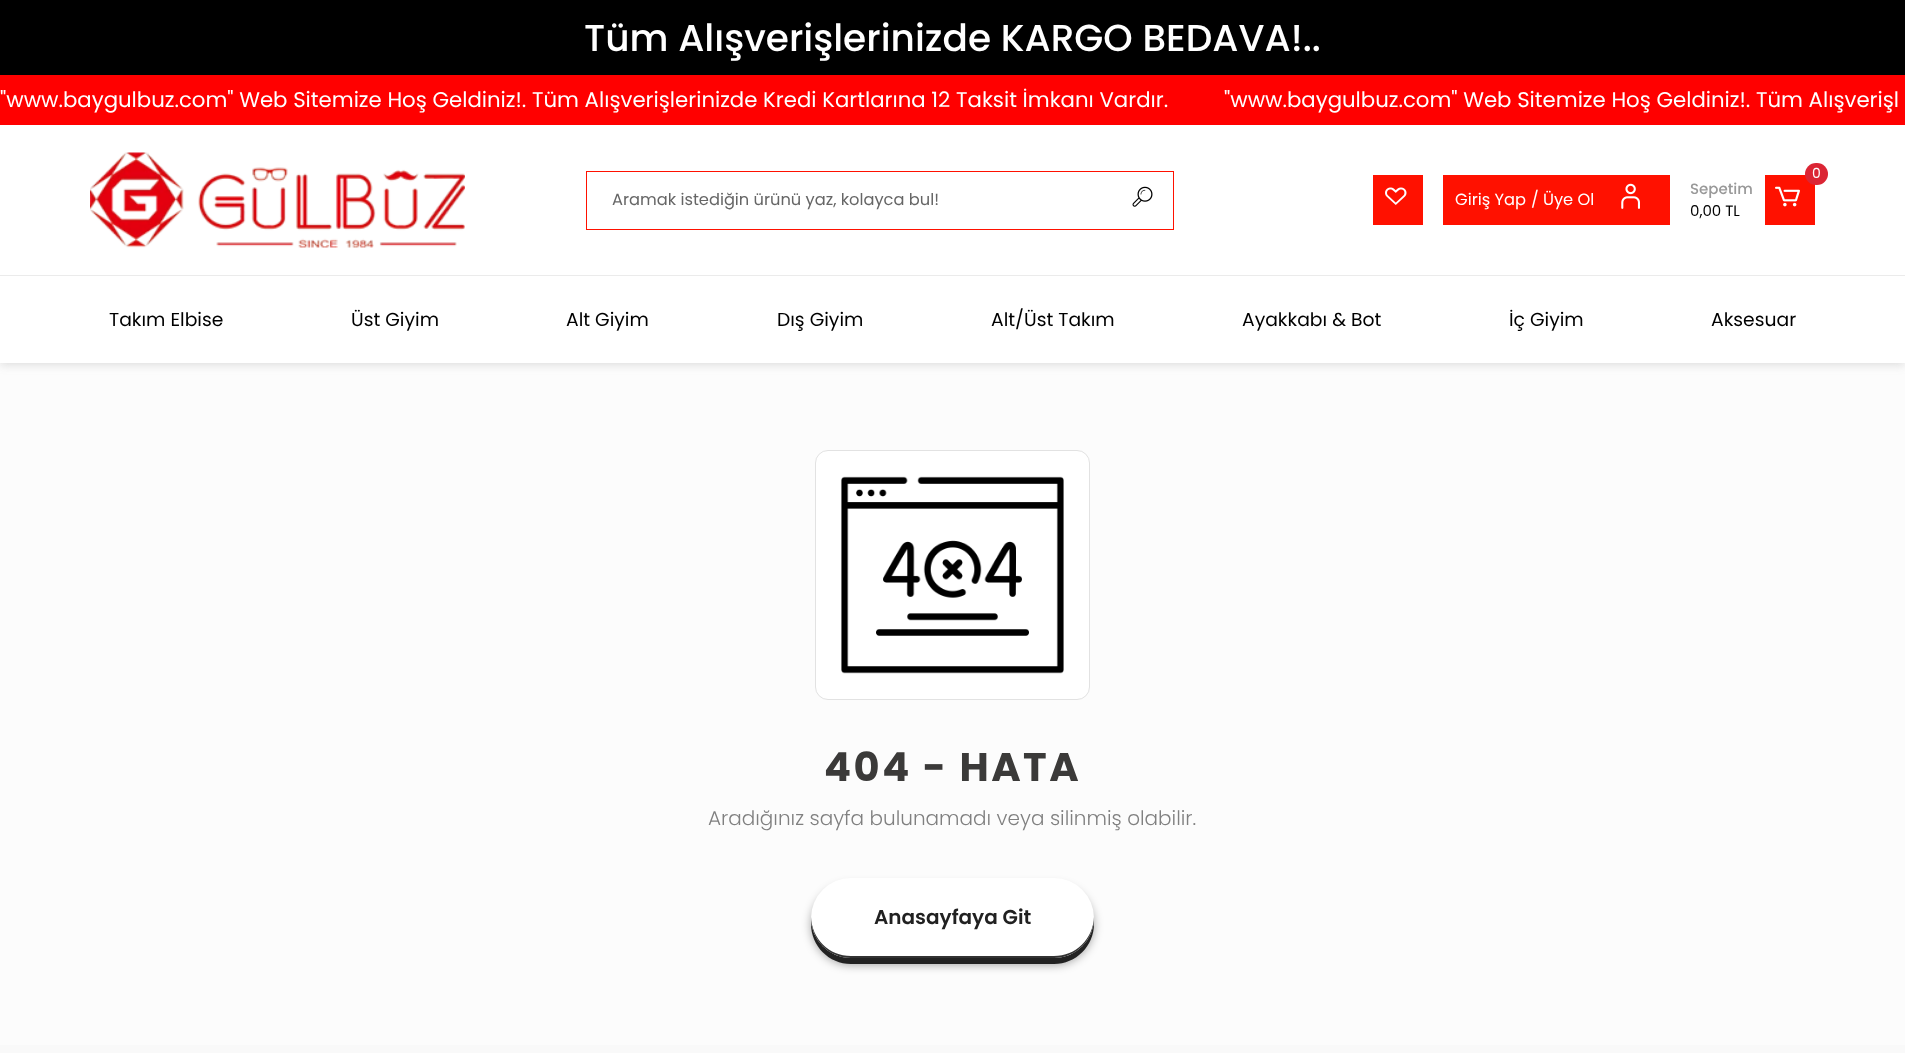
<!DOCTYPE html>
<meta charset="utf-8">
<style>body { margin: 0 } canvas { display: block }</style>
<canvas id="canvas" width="1905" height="1053"></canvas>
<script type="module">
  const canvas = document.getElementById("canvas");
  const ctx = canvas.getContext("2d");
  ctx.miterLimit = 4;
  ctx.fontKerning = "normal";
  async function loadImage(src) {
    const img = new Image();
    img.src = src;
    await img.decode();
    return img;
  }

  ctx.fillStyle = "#fcfcfc";
  ctx.fillRect(0, 0, 1905, 1053);
  ctx.fillStyle = "#000000";
  ctx.fillRect(0, 0, 1905, 75);
  ctx.font = "500 37.5px Poppins";
  ctx.fillStyle = "#ffffff";
  ctx.fillText("Tüm Alışverişlerinizde KARGO BEDAVA!..", 584, 51);
  ctx.fillStyle = "rgba(99, 99, 99, 0.2)";
  ctx.filter = "blur(5px)";
  ctx.beginPath();
  ctx.rect(0, 128, 1905, 237);
  ctx.fill();
  ctx.filter = "none";
  ctx.fillStyle = "#ff0000";
  ctx.fillRect(0, 75, 1905, 50);
  ctx.font = "21.25px Poppins";
  ctx.fillStyle = "#ffffff";
  ctx.fillText("\"www.baygulbuz.com\" Web Sitemize Hoş Geldiniz!. Tüm Alışverişlerinizde Kredi Kartlarına 12 Taksit İmkanı Vardır.", 0, 107);
  ctx.fillText("\"www.baygulbuz.com\" Web Sitemize Hoş Geldiniz!. Tüm Alışverişl", 1224, 107);
  ctx.fillRect(0, 125, 1905, 238);
  ctx.drawImage(await loadImage("img1.png"), 90, 152, 375, 96);
  ctx.strokeStyle = "#ff1100";
  ctx.strokeRect(586.5, 171.5, 587, 58);
  ctx.font = "16.25px Poppins";
  ctx.fillStyle = "#666666";
  ctx.fillText("Aramak istediğin ürünü yaz, kolayca bul!", 612, 205);
  ctx.drawImage(await loadImage("img2.png"), 1132, 186, 21, 21);
  ctx.fillStyle = "#ff1100";
  ctx.fillRect(1373, 175, 50, 50);
  ctx.drawImage(await loadImage("img3.png"), 1385, 187, 22, 18);
  ctx.fillRect(1443, 175, 227, 50);
  ctx.fillStyle = "#ffffff";
  ctx.fillText("Giriş Yap", 1455, 205);
  ctx.fillText("/", 1531, 205);
  ctx.fillText("Üye Ol", 1543, 205);
  ctx.drawImage(await loadImage("img4.png"), 1621, 183, 19, 26);
  ctx.fillStyle = "#ff1100";
  ctx.fillRect(1765, 175, 50, 50);
  ctx.fillStyle = "#db2534";
  ctx.beginPath();
  ctx.roundRect(1805, 163, 23, 22, 11);
  ctx.fill();
  ctx.font = "14px Poppins";
  ctx.fillStyle = "#ffffff";
  ctx.fillText("0", 1812, 178);
  ctx.drawImage(await loadImage("img5.png"), 1775, 186, 25, 21);
  ctx.font = "500 15px Poppins";
  ctx.fillStyle = "#999999";
  ctx.fillText("Sepetim", 1690, 194);
  ctx.font = "15px Poppins";
  ctx.fillStyle = "#000000";
  ctx.fillText("0,00 TL", 1690, 216);
  ctx.fillStyle = "#ebebeb";
  ctx.fillRect(0, 275, 1905, 1);
  ctx.font = "18.75px Poppins";
  ctx.fillStyle = "#000000";
  ctx.fillText("Takım Elbise", 109, 326);
  ctx.fillText("Üst Giyim", 351, 326);
  ctx.fillText("Alt Giyim", 566, 326);
  ctx.fillText("Dış Giyim", 777, 326);
  ctx.fillText("Alt/Üst Takım", 991, 326);
  ctx.fillText("Ayakkabı & Bot", 1242, 326);
  ctx.fillText("İç Giyim", 1509, 326);
  ctx.fillText("Aksesuar", 1711, 326);
  ctx.fillStyle = "#ffffff";
  ctx.beginPath();
  ctx.roundRect(815.5, 450.5, 274, 249, 12.5);
  ctx.fill();
  ctx.strokeStyle = "#e2e2e2";
  ctx.stroke();
  ctx.drawImage(await loadImage("img6.png"), 841, 476, 223, 198);
  ctx.letterSpacing = "2.5px";
  ctx.font = "bold 40px Poppins";
  ctx.fillStyle = "#3b3a39";
  ctx.fillText("404 - HATA", 824, 781);
  ctx.letterSpacing = "0px";
  ctx.font = "300 20px Poppins";
  ctx.fillStyle = "#808080";
  ctx.fillText("Aradığınız sayfa bulunamadı veya silinmiş olabilir.", 708, 825);
  ctx.fillStyle = "rgba(0, 0, 0, 0.35)";
  ctx.filter = "blur(5px)";
  ctx.beginPath();
  ctx.roundRect(811, 885, 283, 80, 40);
  ctx.fill();
  ctx.filter = "none";
  ctx.fillStyle = "#222222";
  ctx.beginPath();
  ctx.moveTo(811, 919);
  ctx.lineTo(811, 924);
  ctx.bezierCurveTo(811, 946, 829, 964, 851, 964);
  ctx.lineTo(1054, 964);
  ctx.bezierCurveTo(1076, 964, 1094, 946, 1094, 924);
  ctx.lineTo(1094, 919);
  ctx.bezierCurveTo(1093, 941, 1075, 958, 1054, 958);
  ctx.lineTo(851, 958);
  ctx.bezierCurveTo(830, 958, 812, 941, 811, 919);
  ctx.closePath();
  ctx.fill();
  ctx.fillStyle = "#ffffff";
  ctx.beginPath();
  ctx.roundRect(811, 878, 283, 80, 40);
  ctx.fill();
  ctx.fillStyle = "#333333";
  ctx.beginPath();
  ctx.moveTo(811, 917);
  ctx.lineTo(811, 918);
  ctx.bezierCurveTo(811, 940, 829, 958, 851, 958);
  ctx.lineTo(1054, 958);
  ctx.bezierCurveTo(1076, 958, 1094, 940, 1094, 918);
  ctx.lineTo(1094, 917);
  ctx.bezierCurveTo(1093, 939, 1076, 956, 1054, 956);
  ctx.lineTo(851, 956);
  ctx.bezierCurveTo(829, 956, 812, 939, 811, 917);
  ctx.closePath();
  ctx.fill();
  ctx.font = "600 20px Poppins";
  ctx.fillStyle = "#212121";
  ctx.fillText("Anasayfaya Git", 874, 924);
  ctx.fillStyle = "#f9f9f9";
  ctx.fillRect(0, 1045, 1905, 8);
</script>
